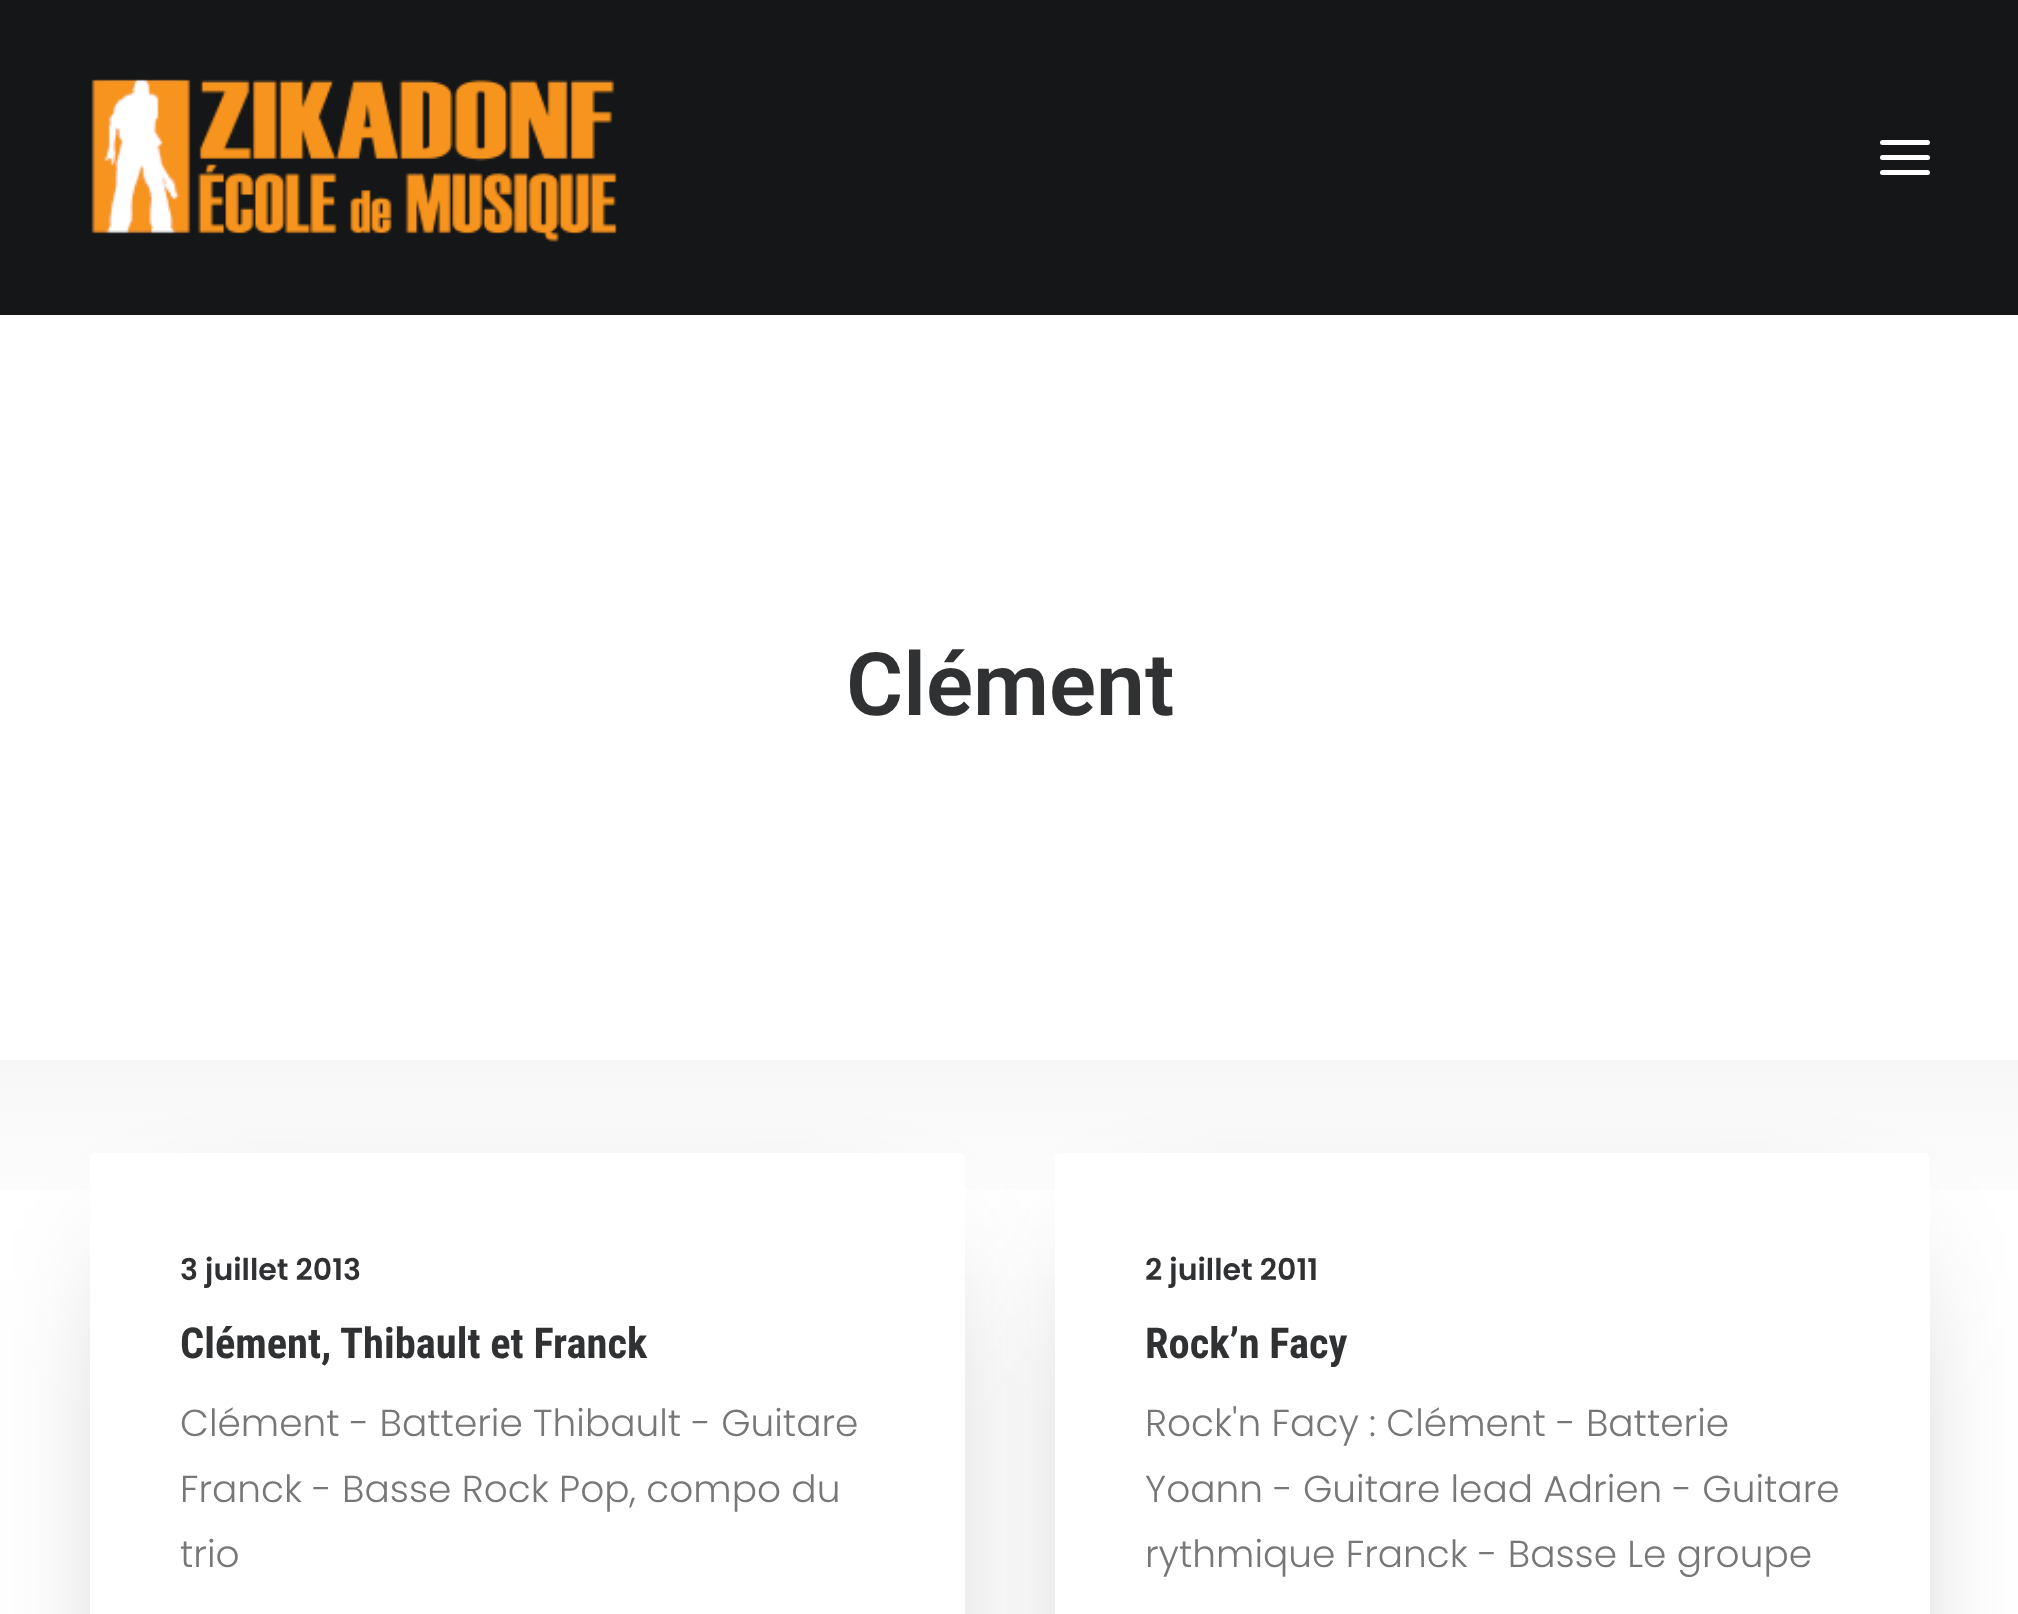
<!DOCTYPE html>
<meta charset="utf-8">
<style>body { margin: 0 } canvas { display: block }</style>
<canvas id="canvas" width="2018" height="1614"></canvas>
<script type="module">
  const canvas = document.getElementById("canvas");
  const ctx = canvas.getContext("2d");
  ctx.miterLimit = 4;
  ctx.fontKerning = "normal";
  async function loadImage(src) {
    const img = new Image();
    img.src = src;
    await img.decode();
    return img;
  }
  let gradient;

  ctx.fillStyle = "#ffffff";
  ctx.fillRect(0, 0, 2018, 1614);
  ctx.fillStyle = "#141618";
  ctx.fillRect(0, 0, 2018, 315);
  ctx.drawImage(await loadImage("img1.png"), 91, 79, 526, 163);
  ctx.fillStyle = "#ffffff";
  ctx.beginPath();
  ctx.roundRect(1880, 155, 50, 5, 2.5);
  ctx.fill();
  ctx.beginPath();
  ctx.roundRect(1880, 140, 50, 5, 2.5);
  ctx.fill();
  ctx.beginPath();
  ctx.roundRect(1880, 170, 50, 5, 2.5);
  ctx.fill();
  ctx.font = "600 87.5px Roboto";
  ctx.fillStyle = "#303133";
  ctx.fillText("Clément", 846, 715);
  gradient = ctx.createLinearGradient(1010, 1248, 1010, 1060);
  gradient.addColorStop(0, "#ffffff");
  gradient.addColorStop(1, "#f7f7f7");
  ctx.fillStyle = gradient;
  ctx.fillRect(0, 1060, 2018, 129);
  ctx.fillStyle = "rgba(0, 0, 0, 0.45)";
  ctx.filter = "blur(75px)";
  ctx.beginPath();
  ctx.rect(165, 1278, 725, 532);
  ctx.fill();
  ctx.filter = "none";
  ctx.fillStyle = "#ffffff";
  ctx.beginPath();
  ctx.roundRect(90, 1153, 875, 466, 5);
  ctx.fill();
  ctx.font = "600 30px Poppins";
  ctx.fillStyle = "#303133";
  ctx.fillText("3 juillet 2013", 180, 1280);
  ctx.font = "bold 42.5px Roboto Condensed";
  ctx.fillText("Clément, Thibault et Franck", 180, 1358);
  ctx.font = "300 37.5px Poppins";
  ctx.fillStyle = "#777777";
  ctx.fillText("Clément - Batterie Thibault - Guitare", 180, 1436);
  ctx.fillText("Franck - Basse Rock Pop, compo du", 180, 1502);
  ctx.fillText("trio", 180, 1567);
  ctx.fillStyle = "rgba(0, 0, 0, 0.45)";
  ctx.filter = "blur(75px)";
  ctx.beginPath();
  ctx.rect(1130, 1278, 725, 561);
  ctx.fill();
  ctx.filter = "none";
  ctx.fillStyle = "#ffffff";
  ctx.beginPath();
  ctx.roundRect(1055, 1153, 875, 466, 5);
  ctx.fill();
  ctx.font = "600 30px Poppins";
  ctx.fillStyle = "#303133";
  ctx.fillText("2 juillet 2011", 1145, 1280);
  ctx.font = "bold 42.5px Roboto Condensed";
  ctx.fillText("Rock’n Facy", 1145, 1358);
  ctx.font = "300 37.5px Poppins";
  ctx.fillStyle = "#777777";
  ctx.fillText("Rock'n Facy : Clément - Batterie", 1145, 1436);
  ctx.fillText("Yoann - Guitare lead Adrien - Guitare", 1145, 1502);
  ctx.fillText("rythmique Franck - Basse Le groupe", 1145, 1567);
</script>
